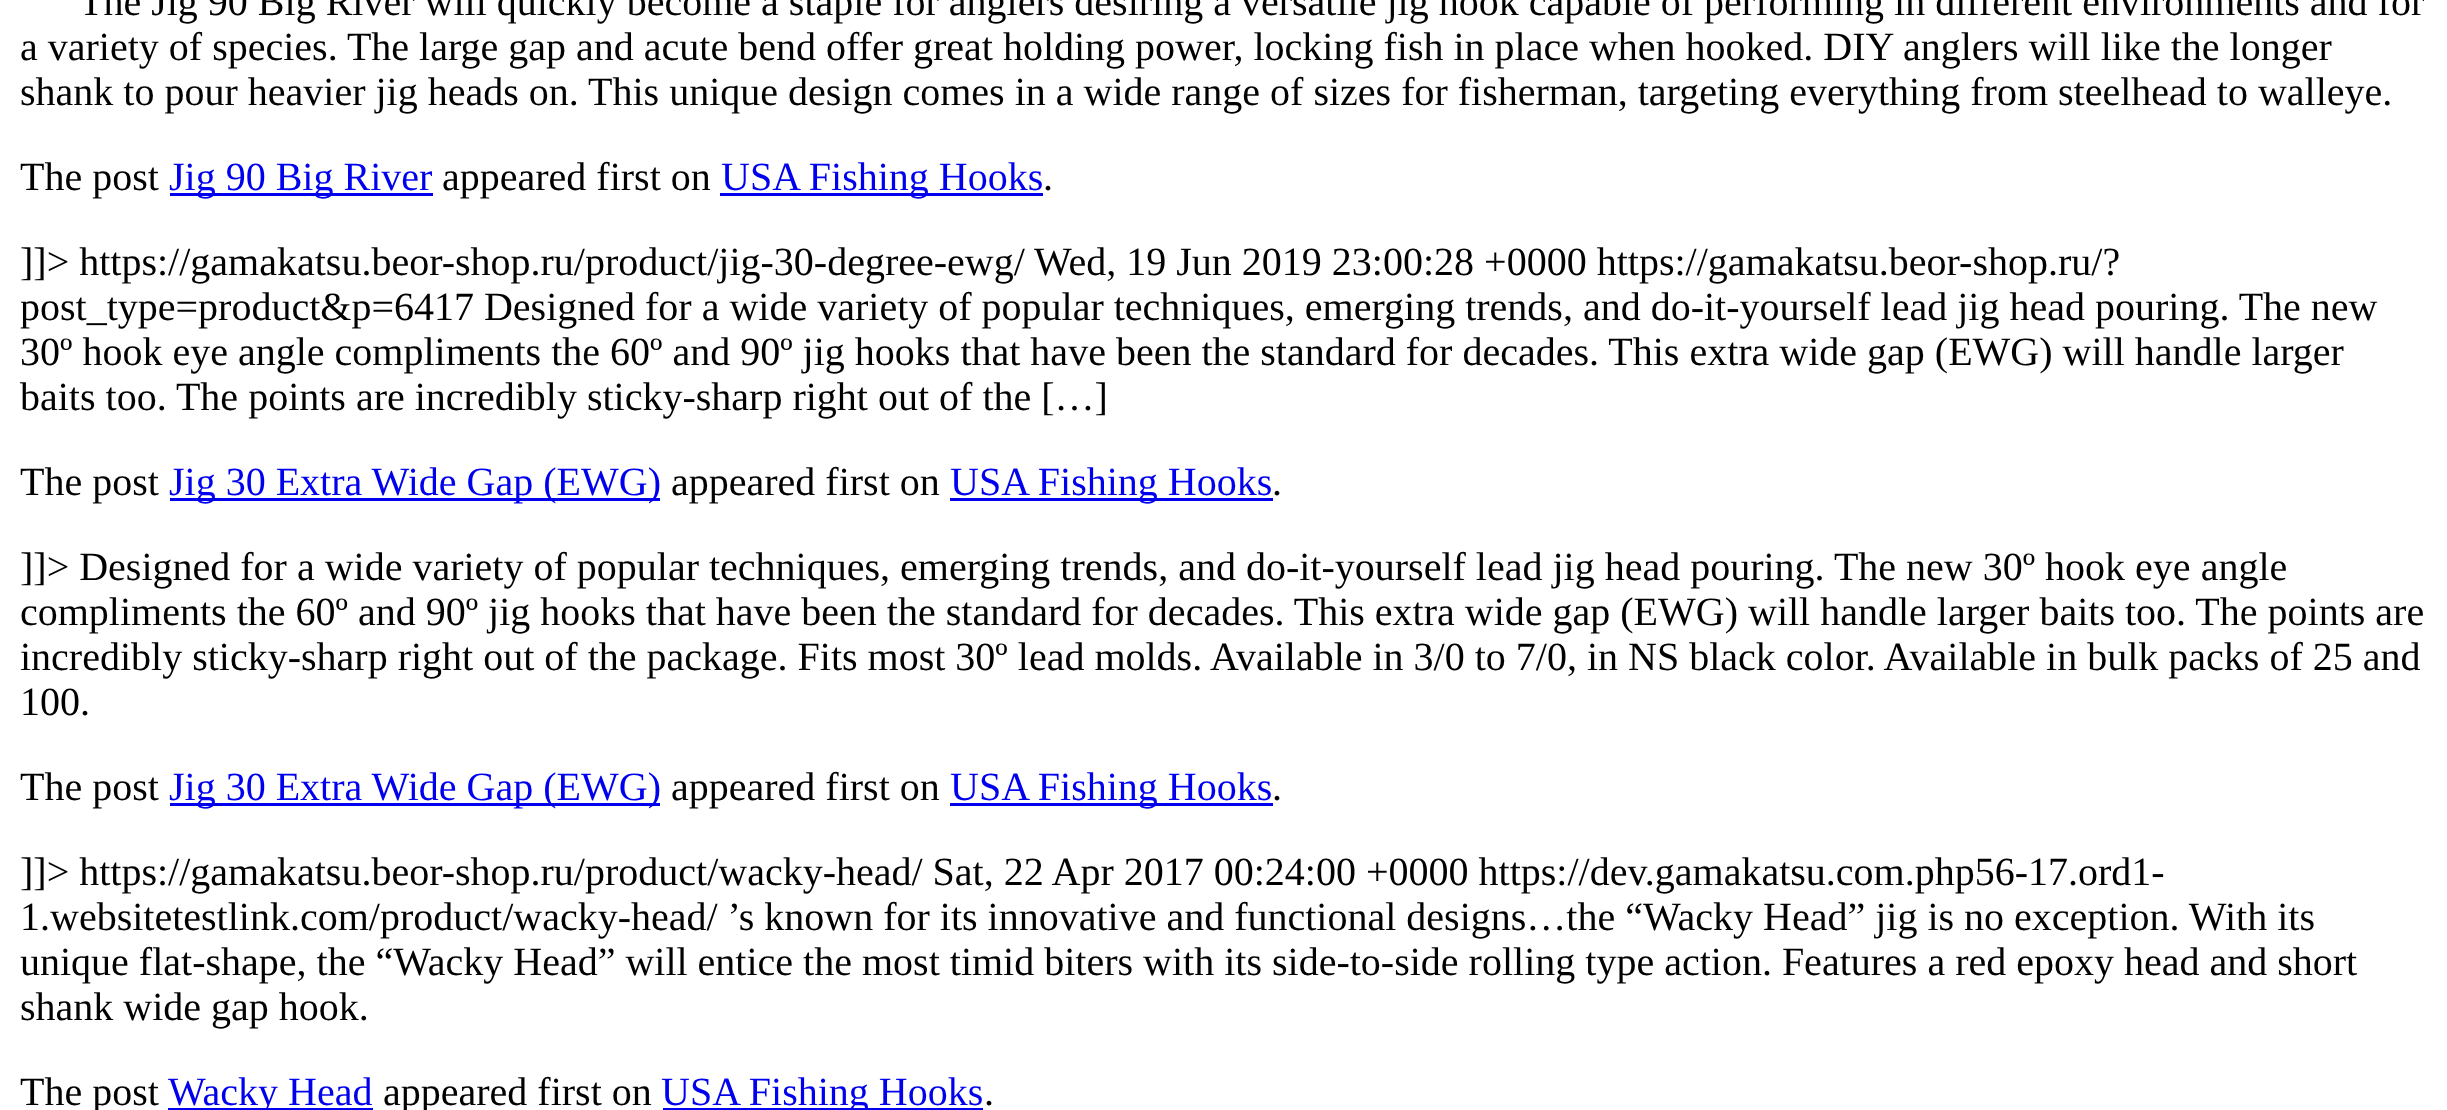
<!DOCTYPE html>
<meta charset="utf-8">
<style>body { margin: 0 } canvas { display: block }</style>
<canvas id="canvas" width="2447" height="1110"></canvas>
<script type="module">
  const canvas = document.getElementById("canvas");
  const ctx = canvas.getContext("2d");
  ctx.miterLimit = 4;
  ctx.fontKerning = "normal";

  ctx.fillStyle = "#ffffff";
  ctx.fillRect(0, 0, 2447, 1110);
  ctx.font = "40px Liberation Serif";
  ctx.fillStyle = "#000000";
  ctx.fillText("The Jig 90 Big River will quickly become a staple for anglers desiring a versatile jig hook capable of performing in different environments and for", 79, 15);
  ctx.fillText("a variety of species. The large gap and acute bend offer great holding power, locking fish in place when hooked. DIY anglers will like the longer", 20, 60);
  ctx.fillText("shank to pour heavier jig heads on. This unique design comes in a wide range of sizes for fisherman, targeting everything from steelhead to walleye.", 20, 105);
  ctx.fillText("The post", 20, 190);
  ctx.fillStyle = "#0000ee";
  ctx.fillRect(170, 193, 263, 3);
  ctx.fillText("Jig 90 Big River", 169, 190);
  ctx.fillStyle = "#000000";
  ctx.fillText("appeared first on", 442, 190);
  ctx.fillStyle = "#0000ee";
  ctx.fillRect(720, 193, 323, 3);
  ctx.fillText("USA Fishing Hooks", 721, 190);
  ctx.fillStyle = "#000000";
  ctx.fillText(".", 1043, 190);
  ctx.fillText("]]> https://gamakatsu.beor-shop.ru/product/jig-30-degree-ewg/", 20, 275);
  ctx.fillText("Wed, 19 Jun 2019 23:00:28 +0000 https://gamakatsu.beor-shop.ru/?", 1034, 275);
  ctx.fillText("post_type=product&p=6417 Designed for a wide variety of popular techniques, emerging trends, and do-it-yourself lead jig head pouring. The new", 20, 320);
  ctx.fillText("30º hook eye angle compliments the 60º and 90º jig hooks that have been the standard for decades. This extra wide gap (EWG) will handle larger", 20, 365);
  ctx.fillText("baits too. The points are incredibly sticky-sharp right out of the […]", 20, 410);
  ctx.fillText("The post", 20, 495);
  ctx.fillStyle = "#0000ee";
  ctx.fillRect(170, 498, 490, 3);
  ctx.fillText("Jig 30 Extra Wide Gap (EWG)", 169, 495);
  ctx.fillStyle = "#000000";
  ctx.fillText("appeared first on", 671, 495);
  ctx.fillStyle = "#0000ee";
  ctx.fillRect(950, 498, 323, 3);
  ctx.fillText("USA Fishing Hooks", 950, 495);
  ctx.fillStyle = "#000000";
  ctx.fillText(".", 1272, 495);
  ctx.fillText("]]> Designed for a wide variety of popular techniques, emerging trends, and do-it-yourself lead jig head pouring. The new 30º hook eye angle", 20, 580);
  ctx.fillText("compliments the 60º and 90º jig hooks that have been the standard for decades. This extra wide gap (EWG) will handle larger baits too. The points are", 20, 625);
  ctx.fillText("incredibly sticky-sharp right out of the package. Fits most 30º lead molds. Available in 3/0 to 7/0, in NS black color. Available in bulk packs of 25 and", 20, 670);
  ctx.fillText("100.", 20, 715);
  ctx.fillText("The post", 20, 800);
  ctx.fillStyle = "#0000ee";
  ctx.fillRect(170, 803, 490, 3);
  ctx.fillText("Jig 30 Extra Wide Gap (EWG)", 169, 800);
  ctx.fillStyle = "#000000";
  ctx.fillText("appeared first on", 671, 800);
  ctx.fillStyle = "#0000ee";
  ctx.fillRect(950, 803, 323, 3);
  ctx.fillText("USA Fishing Hooks", 950, 800);
  ctx.fillStyle = "#000000";
  ctx.fillText(".", 1272, 800);
  ctx.fillText("]]> https://gamakatsu.beor-shop.ru/product/wacky-head/ Sat, 22 Apr 2017 00:24:00 +0000 https://dev.gamakatsu.com.php56-17.ord1-", 20, 885);
  ctx.fillText("1.websitetestlink.com/product/wacky-head/ ’s known for its innovative and functional designs…the “Wacky Head” jig is no exception. With its", 20, 930);
  ctx.fillText("unique flat-shape, the “Wacky Head” will entice the most timid biters with its side-to-side rolling type action. Features a red epoxy head and short", 20, 975);
  ctx.fillText("shank wide gap hook.", 20, 1020);
  ctx.fillText("The post", 20, 1105);
  ctx.fillStyle = "#0000ee";
  ctx.fillRect(168, 1108, 205, 2);
  ctx.fillText("Wacky Head", 168, 1105);
  ctx.fillStyle = "#000000";
  ctx.fillText("appeared first on", 383, 1105);
  ctx.fillStyle = "#0000ee";
  ctx.fillRect(663, 1108, 320, 2);
  ctx.fillText("USA Fishing Hooks", 661, 1105);
  ctx.fillStyle = "#000000";
  ctx.fillText(".", 984, 1105);
</script>
